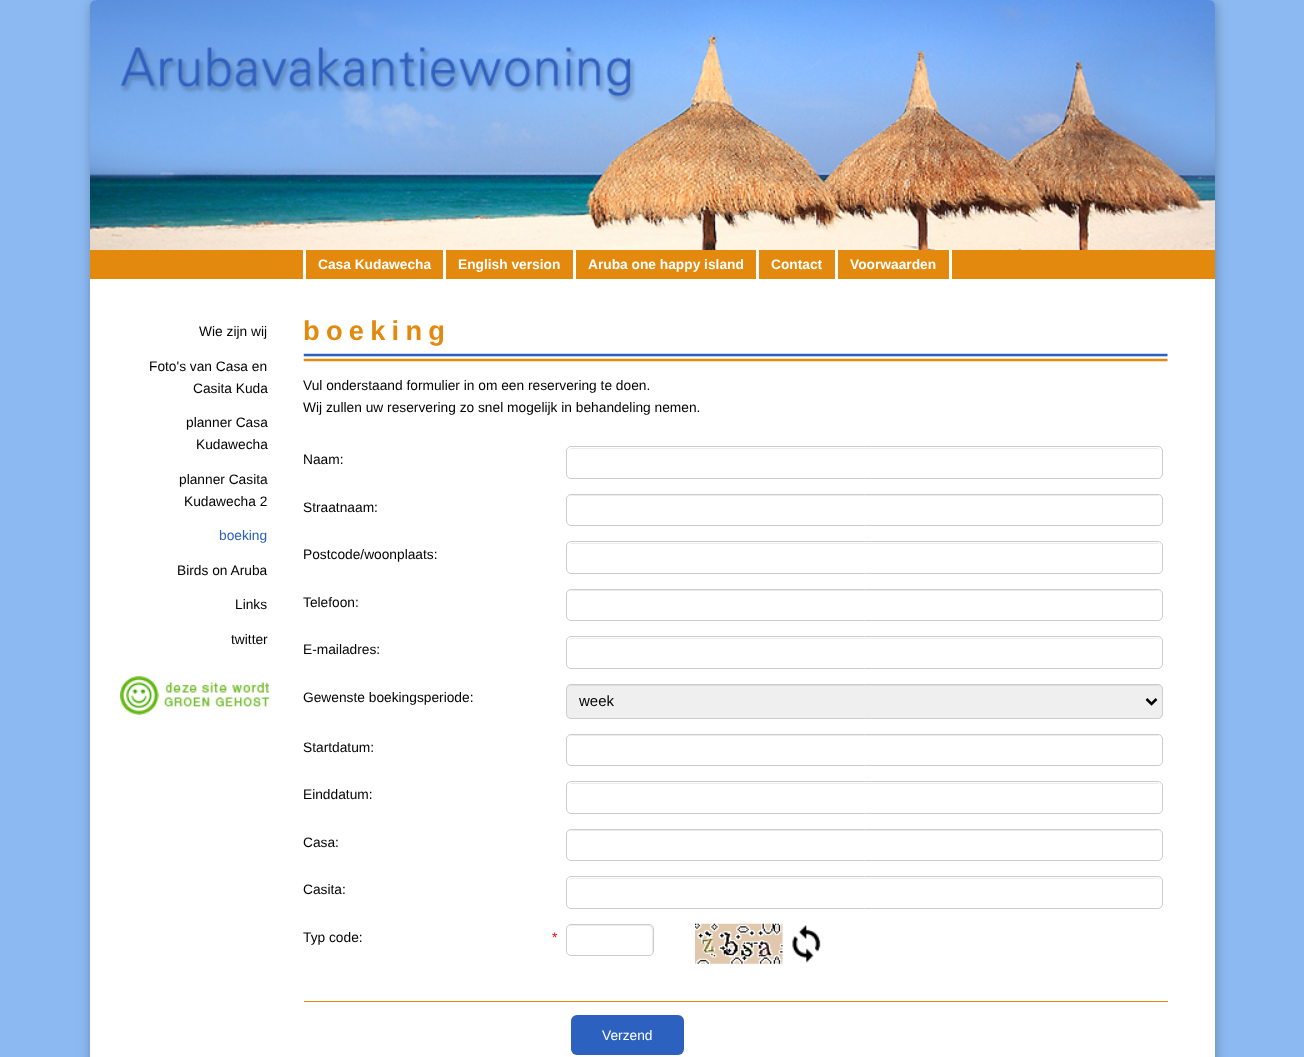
<!DOCTYPE html>
<meta charset="utf-8">
<style>body { margin: 0 } canvas { display: block }</style>
<canvas id="canvas" width="1304" height="1057"></canvas>
<script type="module">
  const canvas = document.getElementById("canvas");
  const ctx = canvas.getContext("2d");
  ctx.miterLimit = 4;
  ctx.fontKerning = "normal";
  async function loadImage(src) {
    const img = new Image();
    img.src = src;
    await img.decode();
    return img;
  }

  ctx.fillStyle = "#8cb9f2";
  ctx.fillRect(0, 0, 1304, 1057);
  ctx.fillStyle = "#6788b2";
  ctx.filter = "blur(6px)";
  ctx.beginPath();
  ctx.roundRect(91, 1, 1125, 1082, 8);
  ctx.fill();
  ctx.filter = "none";
  ctx.fillStyle = "#ffffff";
  ctx.beginPath();
  ctx.roundRect(90, 0, 1125, 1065, 8);
  ctx.fill();
  ctx.drawImage(await loadImage("img1.png"), 90, 0, 1125, 250);
  ctx.fillStyle = "#e3890e";
  ctx.fillRect(90, 250, 1125, 29);
  ctx.fillStyle = "#ffffff";
  ctx.fillRect(303, 250, 3, 29);
  ctx.fillRect(443, 250, 3, 29);
  ctx.font = "bold 13.75px Liberation Sans";
  ctx.fillText("Casa Kudawecha", 318, 269);
  ctx.fillRect(573, 250, 3, 29);
  ctx.fillText("English version", 458, 269);
  ctx.fillRect(756, 250, 3, 29);
  ctx.fillText("Aruba one happy island", 588, 269);
  ctx.fillRect(835, 250, 3, 29);
  ctx.fillText("Contact", 771, 269);
  ctx.fillRect(949, 250, 3, 29);
  ctx.fillText("Voorwaarden", 850, 269);
  ctx.font = "13.75px Liberation Sans";
  ctx.fillStyle = "#000000";
  ctx.fillText("Wie zijn wij", 199, 336);
  ctx.fillText("Foto's van Casa en", 149, 371);
  ctx.fillText("Casita Kuda", 193, 393);
  ctx.fillText("planner Casa", 186, 427);
  ctx.fillText("Kudawecha", 196, 449);
  ctx.fillText("planner Casita", 179, 484);
  ctx.fillText("Kudawecha 2", 184, 506);
  ctx.fillStyle = "#2c61bf";
  ctx.fillText("boeking", 219, 540);
  ctx.fillStyle = "#000000";
  ctx.fillText("Birds on Aruba", 177, 575);
  ctx.fillText("Links", 235, 609);
  ctx.fillText("twitter", 231, 644);
  ctx.drawImage(await loadImage("img2.png"), 120, 676, 150, 39);
  ctx.drawImage(await loadImage("img3.png"), 303, 353, 865, 9);
  ctx.letterSpacing = "6.25px";
  ctx.font = "bold 27.25px Liberation Sans";
  ctx.fillStyle = "#e3890e";
  ctx.fillText("boeking", 303, 340);
  ctx.letterSpacing = "0px";
  ctx.font = "13.75px Liberation Sans";
  ctx.fillStyle = "#000000";
  ctx.fillText("Vul onderstaand formulier in om een reservering te doen.", 303, 390);
  ctx.fillText("Wij zullen uw reservering zo snel mogelijk in behandeling nemen.", 303, 412);
  ctx.fillText("Naam:", 303, 464);
  ctx.fillStyle = "#ececec";
  ctx.beginPath();
  ctx.moveTo(571, 449);
  ctx.lineTo(1158, 449);
  ctx.lineTo(1160, 450);
  ctx.bezierCurveTo(1160, 449, 1158, 448, 1157, 448);
  ctx.lineTo(572, 448);
  ctx.bezierCurveTo(571, 448, 569, 449, 569, 450);
  ctx.closePath();
  ctx.fill();
  ctx.beginPath();
  ctx.roundRect(566.5, 446.5, 596, 32, 4.5);
  ctx.strokeStyle = "#cccccc";
  ctx.stroke();
  ctx.fillStyle = "#000000";
  ctx.fillText("Straatnaam:", 303, 512);
  ctx.fillStyle = "#ececec";
  ctx.beginPath();
  ctx.moveTo(571, 496);
  ctx.lineTo(1158, 496);
  ctx.bezierCurveTo(1160, 496, 1161, 498, 1161, 500);
  ctx.lineTo(1161, 499);
  ctx.bezierCurveTo(1161, 497, 1159, 495, 1157, 495);
  ctx.lineTo(572, 495);
  ctx.bezierCurveTo(570, 495, 568, 497, 568, 499);
  ctx.lineTo(568, 500);
  ctx.bezierCurveTo(568, 498, 569, 496, 571, 496);
  ctx.closePath();
  ctx.fill();
  ctx.beginPath();
  ctx.roundRect(566.5, 494.5, 596, 31, 4.5);
  ctx.stroke();
  ctx.fillStyle = "#000000";
  ctx.fillText("Postcode/woonplaats:", 303, 559);
  ctx.fillStyle = "#ececec";
  ctx.beginPath();
  ctx.moveTo(571, 544);
  ctx.lineTo(1158, 544);
  ctx.bezierCurveTo(1160, 544, 1161, 545, 1161, 548);
  ctx.lineTo(1161, 547);
  ctx.bezierCurveTo(1161, 545, 1159, 543, 1157, 543);
  ctx.lineTo(572, 543);
  ctx.bezierCurveTo(570, 543, 568, 545, 568, 547);
  ctx.lineTo(568, 548);
  ctx.bezierCurveTo(568, 545, 569, 544, 571, 544);
  ctx.closePath();
  ctx.fill();
  ctx.beginPath();
  ctx.roundRect(566.5, 541.5, 596, 32, 4.5);
  ctx.stroke();
  ctx.fillStyle = "#000000";
  ctx.fillText("Telefoon:", 303, 607);
  ctx.fillStyle = "#ececec";
  ctx.beginPath();
  ctx.moveTo(571, 591);
  ctx.lineTo(1158, 591);
  ctx.bezierCurveTo(1160, 591, 1161, 593, 1161, 595);
  ctx.lineTo(1161, 594);
  ctx.bezierCurveTo(1161, 592, 1159, 590, 1157, 590);
  ctx.lineTo(572, 590);
  ctx.bezierCurveTo(570, 590, 568, 592, 568, 594);
  ctx.lineTo(568, 595);
  ctx.bezierCurveTo(568, 593, 569, 591, 571, 591);
  ctx.closePath();
  ctx.fill();
  ctx.beginPath();
  ctx.roundRect(566.5, 589.5, 596, 31, 4.5);
  ctx.stroke();
  ctx.fillStyle = "#000000";
  ctx.fillText("E-mailadres:", 303, 654);
  ctx.fillStyle = "#ececec";
  ctx.beginPath();
  ctx.moveTo(571, 639);
  ctx.lineTo(1158, 639);
  ctx.lineTo(1160, 640);
  ctx.bezierCurveTo(1160, 639, 1158, 638, 1157, 638);
  ctx.lineTo(572, 638);
  ctx.bezierCurveTo(571, 638, 569, 639, 569, 640);
  ctx.closePath();
  ctx.fill();
  ctx.beginPath();
  ctx.roundRect(566.5, 636.5, 596, 32, 4.5);
  ctx.stroke();
  ctx.fillStyle = "#000000";
  ctx.fillText("Gewenste boekingsperiode:", 303, 702);
  ctx.fillStyle = "#efefef";
  ctx.beginPath();
  ctx.roundRect(566, 684, 597, 35, 5);
  ctx.fill();
  ctx.fillStyle = "#dddddd";
  ctx.beginPath();
  ctx.moveTo(571, 686);
  ctx.lineTo(1158, 686);
  ctx.bezierCurveTo(1160, 686, 1161, 688, 1161, 690);
  ctx.lineTo(1161, 689);
  ctx.bezierCurveTo(1161, 687, 1159, 685, 1157, 685);
  ctx.lineTo(572, 685);
  ctx.bezierCurveTo(570, 685, 568, 687, 568, 689);
  ctx.lineTo(568, 690);
  ctx.bezierCurveTo(568, 688, 569, 686, 571, 686);
  ctx.closePath();
  ctx.fill();
  ctx.beginPath();
  ctx.roundRect(566.5, 684.5, 596, 34, 4.5);
  ctx.stroke();
  ctx.beginPath();
  ctx.moveTo(1146.5, 699);
  ctx.lineTo(1151.5, 704);
  ctx.lineTo(1156.5, 699);
  ctx.strokeStyle = "#000000";
  ctx.lineWidth = 2.5;
  ctx.stroke();
  ctx.font = "15px Liberation Sans";
  ctx.fillStyle = "#000000";
  ctx.fillText("week", 579, 706);
  ctx.font = "13.75px Liberation Sans";
  ctx.fillText("Startdatum:", 303, 752);
  ctx.fillStyle = "#ececec";
  ctx.beginPath();
  ctx.moveTo(571, 736);
  ctx.lineTo(1158, 736);
  ctx.bezierCurveTo(1160, 736, 1161, 738, 1161, 740);
  ctx.lineTo(1161, 739);
  ctx.bezierCurveTo(1161, 737, 1159, 735, 1157, 735);
  ctx.lineTo(572, 735);
  ctx.bezierCurveTo(570, 735, 568, 737, 568, 739);
  ctx.lineTo(568, 740);
  ctx.bezierCurveTo(568, 738, 569, 736, 571, 736);
  ctx.closePath();
  ctx.fill();
  ctx.beginPath();
  ctx.roundRect(566.5, 734.5, 596, 31, 4.5);
  ctx.strokeStyle = "#cccccc";
  ctx.lineWidth = 1;
  ctx.stroke();
  ctx.fillStyle = "#000000";
  ctx.fillText("Einddatum:", 303, 799);
  ctx.fillStyle = "#ececec";
  ctx.beginPath();
  ctx.moveTo(571, 784);
  ctx.lineTo(1158, 784);
  ctx.bezierCurveTo(1160, 784, 1161, 785, 1161, 788);
  ctx.lineTo(1161, 787);
  ctx.bezierCurveTo(1161, 785, 1159, 783, 1157, 783);
  ctx.lineTo(572, 783);
  ctx.bezierCurveTo(570, 783, 568, 785, 568, 787);
  ctx.lineTo(568, 788);
  ctx.bezierCurveTo(568, 785, 569, 784, 571, 784);
  ctx.closePath();
  ctx.fill();
  ctx.beginPath();
  ctx.roundRect(566.5, 781.5, 596, 32, 4.5);
  ctx.stroke();
  ctx.fillStyle = "#000000";
  ctx.fillText("Casa:", 303, 847);
  ctx.fillStyle = "#ececec";
  ctx.beginPath();
  ctx.moveTo(571, 831);
  ctx.lineTo(1158, 831);
  ctx.bezierCurveTo(1160, 831, 1161, 833, 1161, 835);
  ctx.lineTo(1161, 834);
  ctx.bezierCurveTo(1161, 832, 1159, 830, 1157, 830);
  ctx.lineTo(572, 830);
  ctx.bezierCurveTo(570, 830, 568, 832, 568, 834);
  ctx.lineTo(568, 835);
  ctx.bezierCurveTo(568, 833, 569, 831, 571, 831);
  ctx.closePath();
  ctx.fill();
  ctx.beginPath();
  ctx.roundRect(566.5, 829.5, 596, 31, 4.5);
  ctx.stroke();
  ctx.fillStyle = "#000000";
  ctx.fillText("Casita:", 303, 894);
  ctx.fillStyle = "#ececec";
  ctx.beginPath();
  ctx.moveTo(571, 879);
  ctx.lineTo(1158, 879);
  ctx.lineTo(1160, 880);
  ctx.bezierCurveTo(1160, 879, 1158, 878, 1157, 878);
  ctx.lineTo(572, 878);
  ctx.bezierCurveTo(571, 878, 569, 879, 569, 880);
  ctx.closePath();
  ctx.fill();
  ctx.beginPath();
  ctx.roundRect(566.5, 876.5, 596, 32, 4.5);
  ctx.stroke();
  ctx.fillStyle = "#000000";
  ctx.fillText("Typ code:", 303, 942);
  ctx.fillStyle = "#ff0000";
  ctx.fillText("*", 552, 942);
  ctx.fillStyle = "#ececec";
  ctx.beginPath();
  ctx.moveTo(571, 926);
  ctx.lineTo(649, 926);
  ctx.bezierCurveTo(653, 926, 652, 935, 652, 937);
  ctx.lineTo(652, 954);
  ctx.bezierCurveTo(653, 953, 653, 952, 653, 951);
  ctx.lineTo(653, 929);
  ctx.bezierCurveTo(653, 927, 651, 925, 649, 925);
  ctx.lineTo(572, 925);
  ctx.bezierCurveTo(570, 925, 568, 927, 568, 929);
  ctx.lineTo(568, 930);
  ctx.bezierCurveTo(568, 928, 569, 926, 571, 926);
  ctx.closePath();
  ctx.fill();
  ctx.beginPath();
  ctx.roundRect(566.5, 924.5, 87, 31, 4.5);
  ctx.stroke();
  ctx.drawImage(await loadImage("img4.png"), 695, 923, 88, 41);
  ctx.drawImage(await loadImage("img5.png"), 792, 925, 29, 38);
  ctx.fillStyle = "#e3890e";
  ctx.fillRect(304, 1001, 864, 1);
  ctx.fillStyle = "#2c61bf";
  ctx.beginPath();
  ctx.roundRect(571, 1015, 113, 40, 6);
  ctx.fill();
  ctx.fillStyle = "#ffffff";
  ctx.fillText("Verzend", 602, 1040);
</script>
